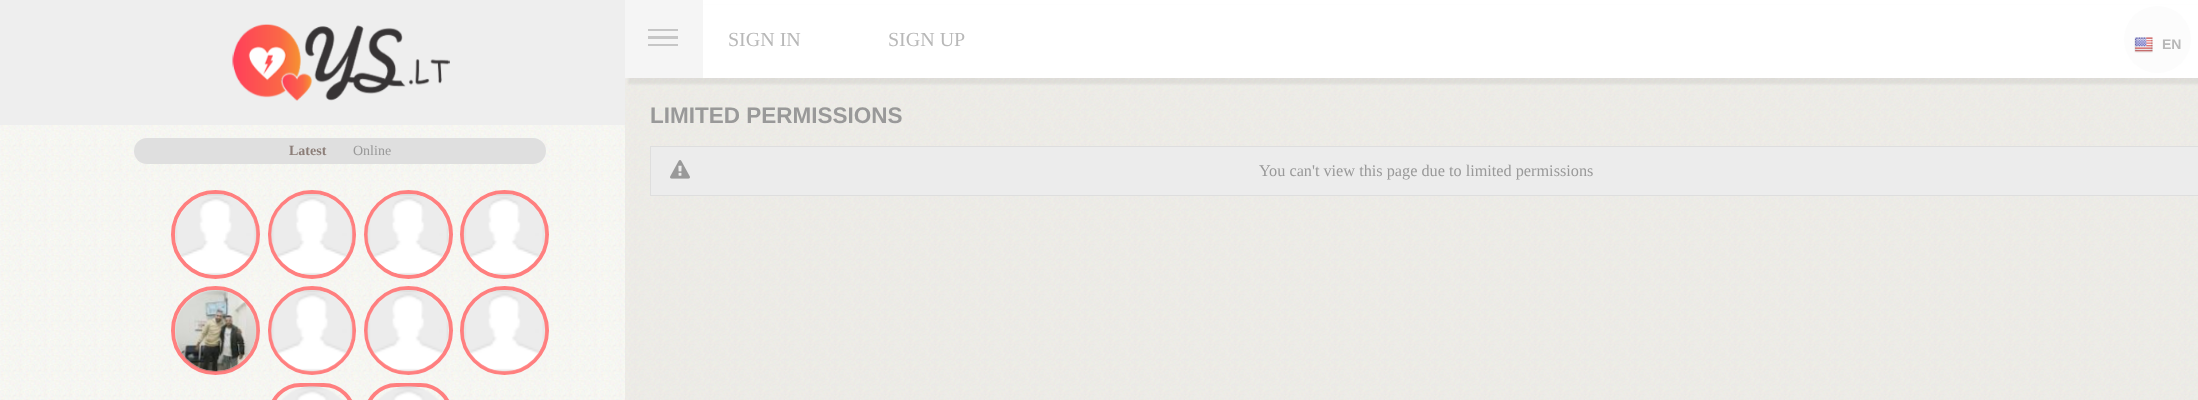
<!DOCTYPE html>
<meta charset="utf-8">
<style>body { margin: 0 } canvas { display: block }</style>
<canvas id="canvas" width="2198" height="400"></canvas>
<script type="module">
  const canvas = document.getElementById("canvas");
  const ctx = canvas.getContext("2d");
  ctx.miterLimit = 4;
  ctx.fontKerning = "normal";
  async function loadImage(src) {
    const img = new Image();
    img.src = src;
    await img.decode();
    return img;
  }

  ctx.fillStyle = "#ffffff";
  ctx.fillRect(0, 0, 2198, 400);
  ctx.fillStyle = "#eeeeee";
  ctx.fillRect(0, 0, 625, 125);
  ctx.drawImage(await loadImage("img4.png"), 625, 78, 1573, 322);
  ctx.fillStyle = "rgba(0, 0, 0, 0.06)";
  ctx.filter = "blur(1px)";
  ctx.beginPath();
  ctx.rect(628, 6, 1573, 78);
  ctx.fill();
  ctx.filter = "none";
  ctx.fillStyle = "#f5f5f5";
  ctx.fillRect(625, 0, 78, 78);
  ctx.drawImage(await loadImage("img1.png"), 648, 29, 30, 17);
  ctx.drawImage(await loadImage("img2.png"), 232, 24, 218, 77);
  ctx.fillStyle = "#ffffff";
  ctx.fillRect(703, 5, 1495, 73);
  ctx.font = "20px Liberation Serif";
  ctx.fillStyle = "#b8b8b8";
  ctx.fillText("SIGN IN", 728, 46);
  ctx.fillText("SIGN UP", 888, 46);
  ctx.fillStyle = "#fcfcfc";
  ctx.beginPath();
  ctx.arc(2157.5, 39.5, 33.5, 0, Math.PI * 2);
  ctx.fill();
  ctx.drawImage(await loadImage("img3.png"), 2134, 37, 19, 16);
  ctx.font = "bold 14px Liberation Sans";
  ctx.fillStyle = "#b8b8b8";
  ctx.fillText("EN", 2162, 49);
  ctx.font = "bold 22.5px Liberation Sans";
  ctx.fillStyle = "#999999";
  ctx.fillText("LIMITED PERMISSIONS", 650, 123);
  ctx.drawImage(await loadImage("img5.png"), 0, 125, 625, 275);
  ctx.fillStyle = "#dfdfdf";
  ctx.beginPath();
  ctx.roundRect(134, 138, 412, 26, 13);
  ctx.fill();
  ctx.font = "bold 14px Liberation Serif";
  ctx.fillStyle = "#8c7e78";
  ctx.fillText("Latest", 289, 155);
  ctx.font = "14px Liberation Serif";
  ctx.fillStyle = "#999999";
  ctx.fillText("Online", 353, 155);
  ctx.beginPath();
  ctx.arc(215.5, 234.5, 42.5, 0, Math.PI * 2);
  ctx.strokeStyle = "#ff7f7f";
  ctx.lineWidth = 4;
  ctx.stroke();
  ctx.drawImage(await loadImage("img6.png"), 174, 193, 83, 82);
  ctx.beginPath();
  ctx.roundRect(270, 192, 84, 85, 42);
  ctx.stroke();
  ctx.drawImage(await loadImage("img7.png"), 271, 193, 82, 82);
  ctx.beginPath();
  ctx.arc(408.5, 234.5, 42.5, 0, Math.PI * 2);
  ctx.stroke();
  ctx.drawImage(await loadImage("img8.png"), 367, 193, 83, 82);
  ctx.beginPath();
  ctx.arc(504.5, 234.5, 42.5, 0, Math.PI * 2);
  ctx.stroke();
  ctx.drawImage(await loadImage("img9.png"), 463, 193, 83, 82);
  ctx.beginPath();
  ctx.arc(215.5, 330.5, 42.5, 0, Math.PI * 2);
  ctx.stroke();
  ctx.drawImage(await loadImage("img10.png"), 174, 290, 83, 82);
  ctx.beginPath();
  ctx.roundRect(270, 288, 84, 85, 42);
  ctx.stroke();
  ctx.drawImage(await loadImage("img11.png"), 271, 290, 82, 82);
  ctx.beginPath();
  ctx.arc(408.5, 330.5, 42.5, 0, Math.PI * 2);
  ctx.stroke();
  ctx.drawImage(await loadImage("img12.png"), 367, 290, 83, 82);
  ctx.beginPath();
  ctx.arc(504.5, 330.5, 42.5, 0, Math.PI * 2);
  ctx.stroke();
  ctx.drawImage(await loadImage("img13.png"), 463, 290, 83, 82);
  ctx.beginPath();
  ctx.roundRect(270, 385, 84, 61, 42);
  ctx.stroke();
  ctx.drawImage(await loadImage("img14.png"), 281, 386, 62, 14);
  ctx.beginPath();
  ctx.roundRect(366, 385, 85, 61, 42);
  ctx.stroke();
  ctx.drawImage(await loadImage("img15.png"), 377, 386, 62, 14);
  ctx.fillStyle = "#ececec";
  ctx.fillRect(651, 147, 1547, 48);
  ctx.drawImage(await loadImage("img16.png"), 670, 160, 20, 19);
  ctx.strokeStyle = "#dedede";
  ctx.lineWidth = 1;
  ctx.strokeRect(650.5, 146.5, 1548, 49);
  ctx.font = "16.25px Liberation Serif";
  ctx.fillStyle = "#999999";
  ctx.fillText("You can't view this page due to limited permissions", 1259, 176);
</script>
